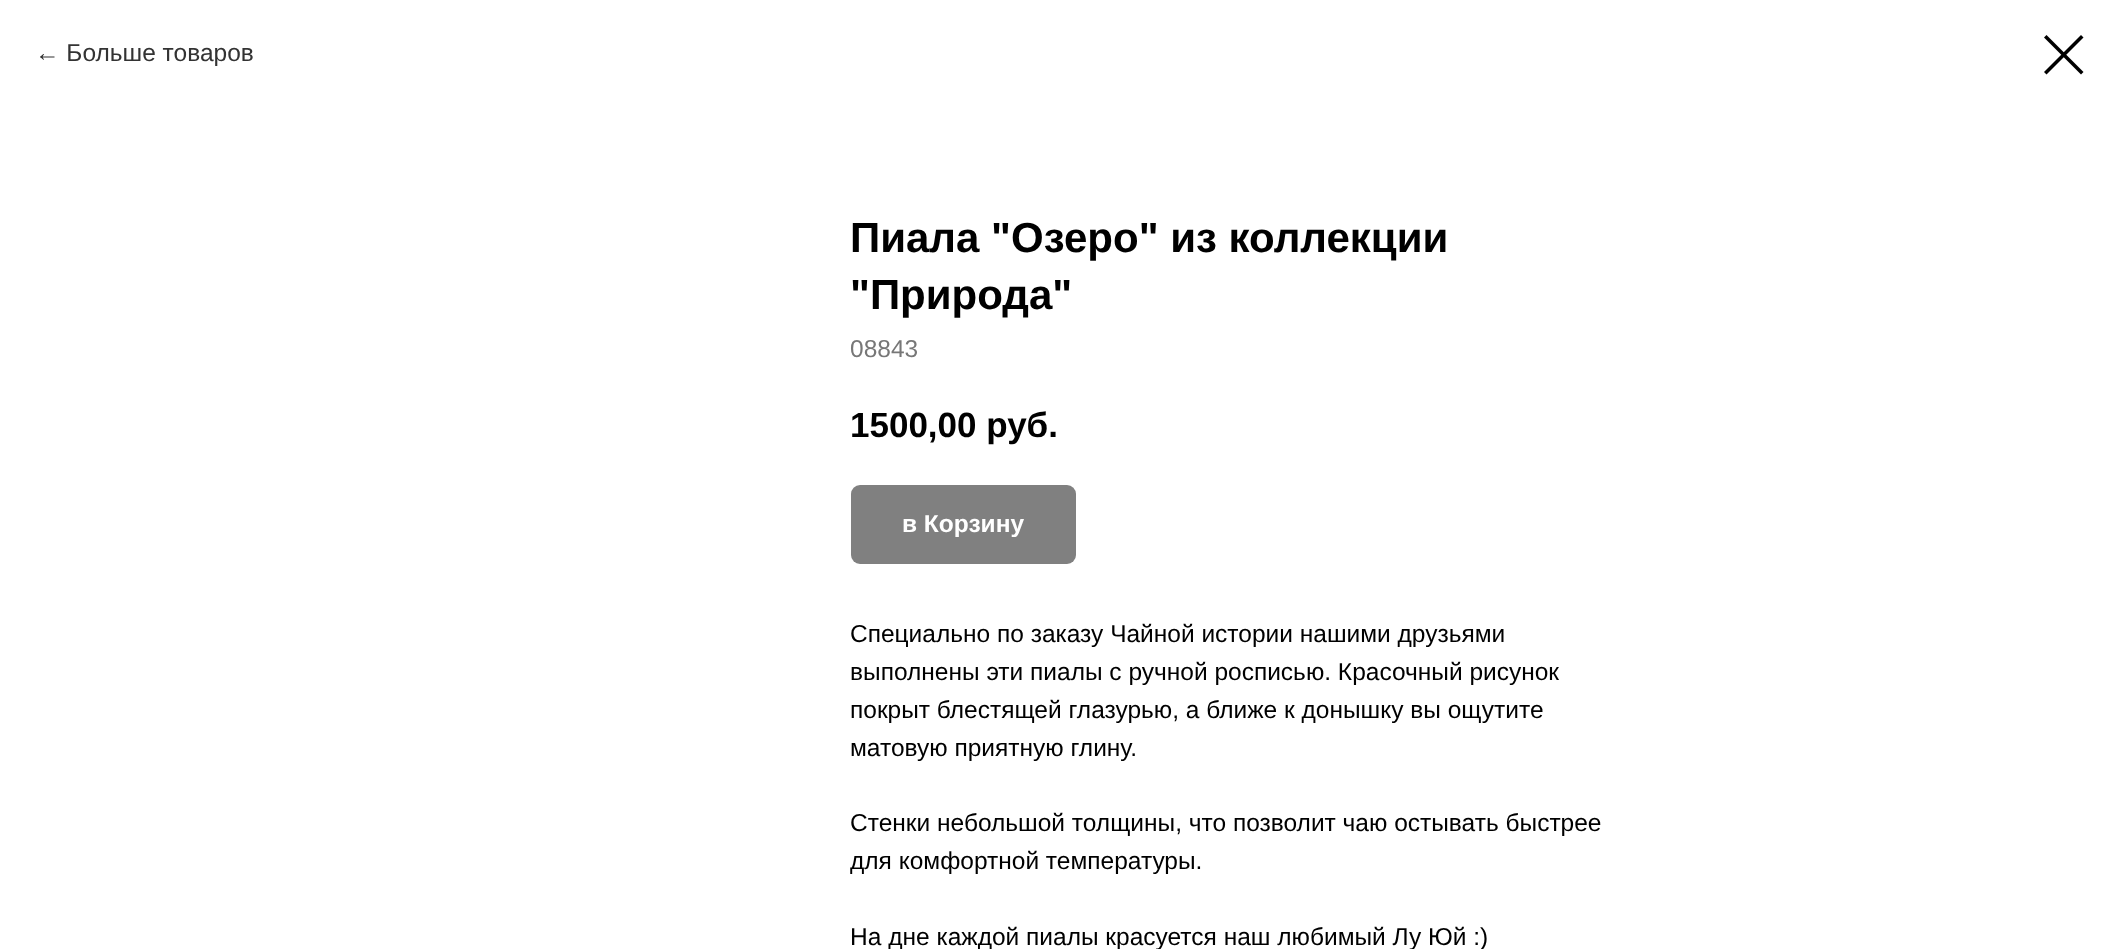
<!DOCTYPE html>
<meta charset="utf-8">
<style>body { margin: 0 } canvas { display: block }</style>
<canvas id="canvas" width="2119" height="949"></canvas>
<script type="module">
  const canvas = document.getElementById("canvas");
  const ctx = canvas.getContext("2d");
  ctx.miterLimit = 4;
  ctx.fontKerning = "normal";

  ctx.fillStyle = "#ffffff";
  ctx.fillRect(0, 0, 2119, 949);
  ctx.font = "24.5px Liberation Sans";
  ctx.fillStyle = "#333333";
  ctx.fillText("← Больше товаров", 35, 61);
  ctx.fillStyle = "#000000";
  ctx.beginPath();
  ctx.moveTo(2044, 37.5);
  ctx.lineTo(2046.5, 35);
  ctx.lineTo(2083.5, 72);
  ctx.lineTo(2081, 74.5);
  ctx.closePath();
  ctx.fill("evenodd");
  ctx.beginPath();
  ctx.moveTo(2081, 35);
  ctx.lineTo(2083.5, 37.5);
  ctx.lineTo(2046.5, 74.5);
  ctx.lineTo(2044, 72);
  ctx.closePath();
  ctx.fill("evenodd");
  ctx.font = "bold 42px Liberation Sans";
  ctx.fillText("Пиала \"Озеро\" из коллекции", 850, 252);
  ctx.fillText("\"Природа\"", 850, 309);
  ctx.font = "24.5px Liberation Sans";
  ctx.fillStyle = "#777777";
  ctx.fillText("08843", 850, 357);
  ctx.font = "bold 35px Liberation Sans";
  ctx.fillStyle = "#000000";
  ctx.fillText("1500,00 руб.", 850, 437);
  ctx.fillStyle = "#808080";
  ctx.beginPath();
  ctx.roundRect(851, 485, 225, 79, 9);
  ctx.fill();
  ctx.font = "bold 24.5px Liberation Sans";
  ctx.fillStyle = "#ffffff";
  ctx.fillText("в Корзину", 902, 532);
  ctx.font = "24.5px Liberation Sans";
  ctx.fillStyle = "#000000";
  ctx.fillText("Специально по заказу Чайной истории нашими друзьями", 850, 642);
  ctx.fillText("выполнены эти пиалы с ручной росписью. Красочный рисунок", 850, 680);
  ctx.fillText("покрыт блестящей глазурью, а ближе к донышку вы ощутите", 850, 718);
  ctx.fillText("матовую приятную глину.", 850, 756);
  ctx.fillText("Стенки небольшой толщины, что позволит чаю остывать быстрее", 850, 831);
  ctx.fillText("для комфортной температуры.", 850, 869);
  ctx.fillText("На дне каждой пиалы красуется наш любимый Лу Юй :)", 850, 945);
</script>
